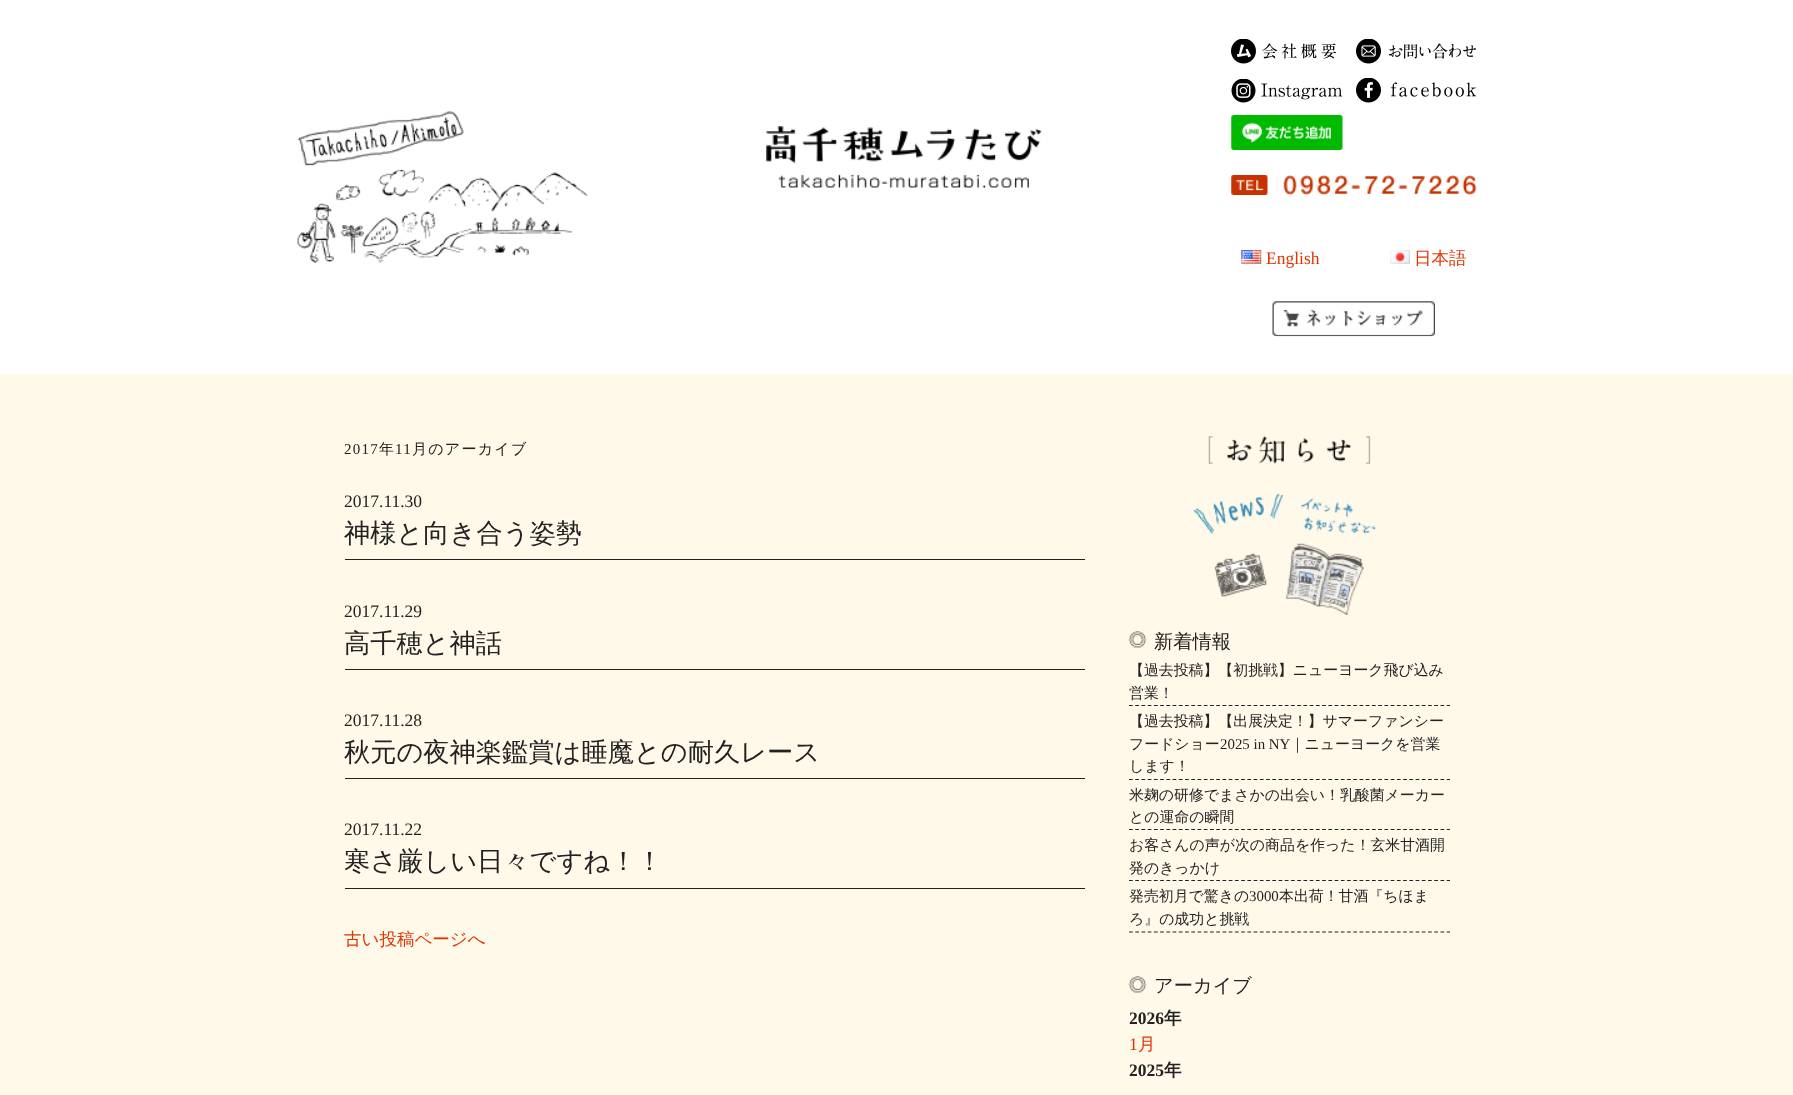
<!DOCTYPE html>
<meta charset="utf-8">
<style>body { margin: 0 } canvas { display: block }</style>
<canvas id="canvas" width="1793" height="1095"></canvas>
<script type="module">
  const canvas = document.getElementById("canvas");
  const ctx = canvas.getContext("2d");
  ctx.miterLimit = 4;
  ctx.fontKerning = "normal";
  async function loadImage(src) {
    const img = new Image();
    img.src = src;
    await img.decode();
    return img;
  }

  ctx.fillStyle = "#fff9ea";
  ctx.fillRect(0, 0, 1793, 1095);
  ctx.fillStyle = "#ffffff";
  ctx.fillRect(0, 0, 1793, 374);
  ctx.drawImage(await loadImage("img1.png"), 297, 111, 291, 152);
  ctx.drawImage(await loadImage("img2.png"), 766, 126, 276, 62);
  ctx.drawImage(await loadImage("img3.png"), 1231, 39, 105, 25);
  ctx.drawImage(await loadImage("img4.png"), 1356, 39, 120, 25);
  ctx.drawImage(await loadImage("img5.png"), 1231, 79, 112, 24);
  ctx.drawImage(await loadImage("img6.png"), 1356, 78, 120, 25);
  ctx.drawImage(await loadImage("img7.png"), 1231, 115, 112, 35);
  ctx.drawImage(await loadImage("img8.png"), 1231, 175, 246, 20);
  ctx.drawImage(await loadImage("img9.png"), 1241, 250, 21, 14);
  ctx.font = "17.5px Liberation Serif";
  ctx.fillStyle = "#e13400";
  ctx.fillText("English", 1266, 264);
  ctx.drawImage(await loadImage("img10.png"), 1390, 250, 20, 14);
  ctx.font = "500 17.5px WenQuanYi Zen Hei";
  ctx.fillText("日本語", 1414, 264);
  ctx.drawImage(await loadImage("img11.png"), 1272, 301, 163, 36);
  ctx.letterSpacing = "1.25px";
  ctx.font = "15px Liberation Serif";
  ctx.fillStyle = "#222222";
  ctx.fillText("2017", 344, 454);
  ctx.font = "500 15px WenQuanYi Zen Hei";
  ctx.fillText("年", 379, 454);
  ctx.font = "15px Liberation Serif";
  ctx.fillText("11", 395, 454);
  ctx.font = "500 15px WenQuanYi Zen Hei";
  ctx.fillText("月のアーカイブ", 412, 454);
  ctx.letterSpacing = "0px";
  ctx.font = "17.5px Liberation Serif";
  ctx.fillText("2017.11.30", 344, 507);
  ctx.fillRect(345, 559, 740, 1);
  ctx.font = "500 26.25px WenQuanYi Zen Hei";
  ctx.fillText("神様と向き合う姿勢", 344, 542);
  ctx.font = "17.5px Liberation Serif";
  ctx.fillText("2017.11.29", 344, 617);
  ctx.fillRect(345, 669, 740, 1);
  ctx.font = "500 26.25px WenQuanYi Zen Hei";
  ctx.fillText("高千穂と神話", 344, 652);
  ctx.font = "17.5px Liberation Serif";
  ctx.fillText("2017.11.28", 344, 726);
  ctx.fillRect(345, 778, 740, 1);
  ctx.font = "500 26.25px WenQuanYi Zen Hei";
  ctx.fillText("秋元の夜神楽鑑賞は睡魔との耐久レース", 344, 761);
  ctx.font = "17.5px Liberation Serif";
  ctx.fillText("2017.11.22", 344, 835);
  ctx.fillRect(345, 888, 740, 1);
  ctx.font = "500 26.25px WenQuanYi Zen Hei";
  ctx.fillText("寒さ厳しい日々ですね！！", 344, 870);
  ctx.font = "500 17.5px WenQuanYi Zen Hei";
  ctx.fillStyle = "#e13400";
  ctx.fillText("古い投稿ページへ", 344, 945);
  ctx.drawImage(await loadImage("img12.png"), 1193, 436, 183, 179);
  ctx.drawImage(await loadImage("img13.png"), 1128, 631, 19, 17);
  ctx.font = "500 19.25px WenQuanYi Zen Hei";
  ctx.fillStyle = "#222222";
  ctx.fillText("新着情報", 1154, 648);
  ctx.beginPath();
  ctx.moveTo(1129, 705.5);
  ctx.lineTo(1450, 705.5);
  ctx.strokeStyle = "#222222";
  ctx.lineWidth = 1.2;
  ctx.setLineDash([3.75, 2.48]);
  ctx.stroke();
  ctx.font = "500 14.9px WenQuanYi Zen Hei";
  ctx.fillText("【過去投稿】【初挑戦】ニューヨーク飛び込み", 1129, 675);
  ctx.fillText("営業！", 1129, 698);
  ctx.beginPath();
  ctx.moveTo(1129, 779.5);
  ctx.lineTo(1450, 779.5);
  ctx.stroke();
  ctx.fillText("【過去投稿】【出展決定！】サマーファンシー", 1129, 726);
  ctx.fillText("フードショー", 1129, 749);
  ctx.font = "14.9px Liberation Serif";
  ctx.fillText("2025 in NY", 1220, 749);
  ctx.font = "500 14.9px WenQuanYi Zen Hei";
  ctx.fillText("｜ニューヨークを営業", 1290, 749);
  ctx.fillText("します！", 1129, 771);
  ctx.beginPath();
  ctx.moveTo(1129, 829.5);
  ctx.lineTo(1450, 829.5);
  ctx.stroke();
  ctx.fillText("米麹の研修でまさかの出会い！乳酸菌メーカー", 1129, 800);
  ctx.fillText("との運命の瞬間", 1129, 822);
  ctx.beginPath();
  ctx.moveTo(1129, 880.5);
  ctx.lineTo(1450, 880.5);
  ctx.stroke();
  ctx.fillText("お客さんの声が次の商品を作った！玄米甘酒開", 1129, 850);
  ctx.fillText("発のきっかけ", 1129, 873);
  ctx.beginPath();
  ctx.moveTo(1129, 932);
  ctx.lineTo(1450, 932);
  ctx.stroke();
  ctx.fillText("発売初月で驚きの", 1129, 901);
  ctx.font = "14.9px Liberation Serif";
  ctx.fillText("3000", 1249, 901);
  ctx.font = "500 14.9px WenQuanYi Zen Hei";
  ctx.fillText("本出荷！甘酒『ちほま", 1279, 901);
  ctx.fillText("ろ』の成功と挑戦", 1129, 924);
  ctx.drawImage(await loadImage("img13.png"), 1128, 976, 19, 17);
  ctx.font = "500 19.25px WenQuanYi Zen Hei";
  ctx.fillText("アーカイブ", 1154, 992);
  ctx.font = "bold 17.5px Liberation Serif";
  ctx.fillText("2026", 1129, 1024);
  ctx.font = "bold 17.5px WenQuanYi Zen Hei";
  ctx.fillText("年", 1164, 1024);
  ctx.font = "17.5px Liberation Serif";
  ctx.fillStyle = "#e13400";
  ctx.fillText("1", 1129, 1050);
  ctx.font = "500 17.5px WenQuanYi Zen Hei";
  ctx.fillText("月", 1138, 1050);
  ctx.font = "bold 17.5px Liberation Serif";
  ctx.fillStyle = "#222222";
  ctx.fillText("2025", 1129, 1076);
  ctx.font = "bold 17.5px WenQuanYi Zen Hei";
  ctx.fillText("年", 1164, 1076);
</script>
